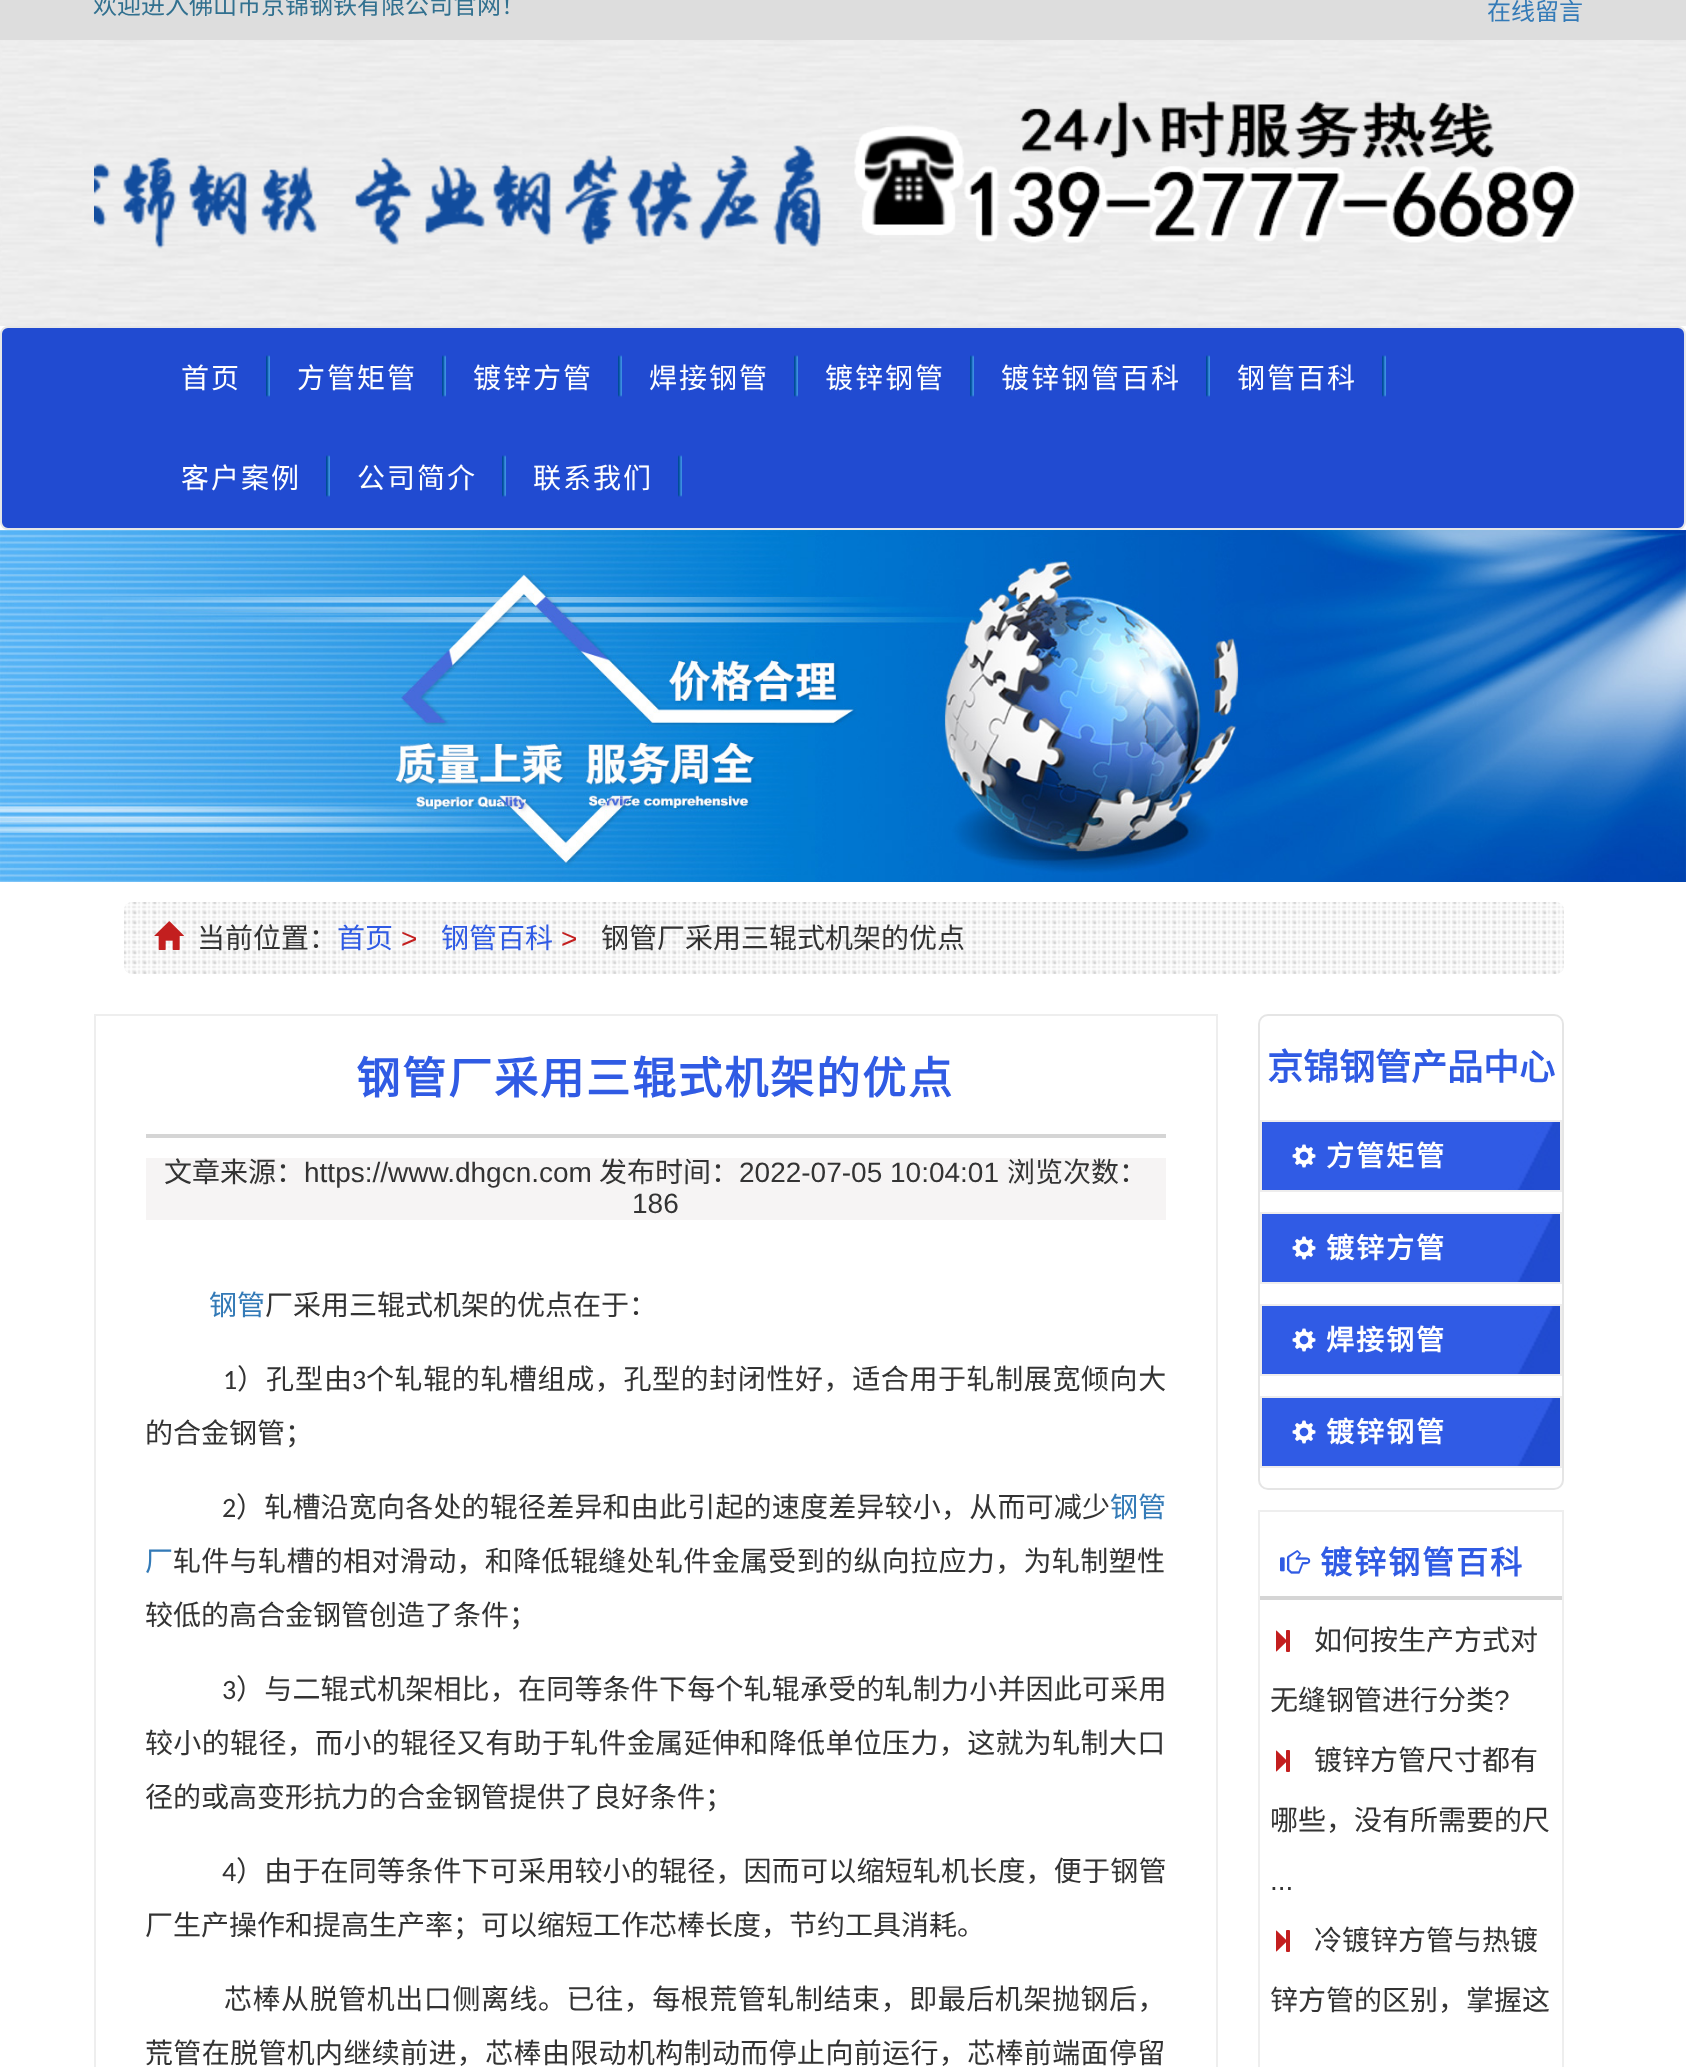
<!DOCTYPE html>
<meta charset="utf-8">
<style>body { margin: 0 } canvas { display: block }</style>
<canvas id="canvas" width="1686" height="2067"></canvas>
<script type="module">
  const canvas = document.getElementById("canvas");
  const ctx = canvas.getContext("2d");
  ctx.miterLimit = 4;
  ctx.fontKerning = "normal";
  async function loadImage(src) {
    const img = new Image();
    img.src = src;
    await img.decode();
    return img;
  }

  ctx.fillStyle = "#ffffff";
  ctx.fillRect(0, 0, 1686, 2067);
  ctx.fillStyle = "#dddddd";
  ctx.fillRect(0, 0, 1686, 40);
  ctx.font = "24px Noto Sans CJK SC";
  ctx.fillStyle = "#31708f";
  ctx.fillText("欢迎进入佛山市京锦钢铁有限公司官网！", 93, 14);
  ctx.fillStyle = "#337ab7";
  ctx.fillText("在线留言", 1487, 20);
  ctx.drawImage(await loadImage("img1.png"), 0, 40, 1686, 286);
  ctx.drawImage(await loadImage("img2.png"), 94, 145, 727, 104);
  ctx.drawImage(await loadImage("img3.png"), 854, 101, 726, 142);
  ctx.fillStyle = "#214bd1";
  ctx.beginPath();
  ctx.roundRect(1, 327, 1684, 202, 7);
  ctx.fill();
  ctx.strokeStyle = "#e7e7e7";
  ctx.lineWidth = 2;
  ctx.stroke();
  ctx.drawImage(await loadImage("img4.png"), 266, 355, 4, 42);
  ctx.letterSpacing = "2px";
  ctx.font = "28px Noto Sans CJK SC";
  ctx.fillStyle = "#ffffff";
  ctx.fillText("首页", 181, 388);
  ctx.drawImage(await loadImage("img4.png"), 442, 355, 4, 42);
  ctx.fillText("方管矩管", 297, 388);
  ctx.drawImage(await loadImage("img4.png"), 618, 355, 4, 42);
  ctx.fillText("镀锌方管", 473, 388);
  ctx.drawImage(await loadImage("img4.png"), 794, 355, 4, 42);
  ctx.fillText("焊接钢管", 649, 388);
  ctx.drawImage(await loadImage("img4.png"), 970, 355, 4, 42);
  ctx.fillText("镀锌钢管", 825, 388);
  ctx.drawImage(await loadImage("img4.png"), 1206, 355, 4, 42);
  ctx.fillText("镀锌钢管百科", 1001, 388);
  ctx.drawImage(await loadImage("img4.png"), 1382, 355, 4, 42);
  ctx.fillText("钢管百科", 1237, 388);
  ctx.drawImage(await loadImage("img4.png"), 326, 455, 4, 42);
  ctx.fillText("客户案例", 181, 488);
  ctx.drawImage(await loadImage("img4.png"), 502, 455, 4, 42);
  ctx.fillText("公司简介", 357, 488);
  ctx.drawImage(await loadImage("img4.png"), 678, 455, 4, 42);
  ctx.fillText("联系我们", 533, 488);
  ctx.drawImage(await loadImage("img5.png"), 0, 530, 1686, 352);
  ctx.drawImage(await loadImage("img6.png"), 124, 902, 1440, 72);
  ctx.drawImage(await loadImage("img7.png"), 154, 921, 30, 29);
  ctx.letterSpacing = "0px";
  ctx.fillStyle = "#333333";
  ctx.fillText("当前位置：", 197, 948);
  ctx.fillStyle = "#305be4";
  ctx.fillText("首页", 337, 948);
  ctx.font = "28px Liberation Sans";
  ctx.fillStyle = "#c31f1f";
  ctx.fillText(">", 401, 948);
  ctx.font = "28px Noto Sans CJK SC";
  ctx.fillStyle = "#305be4";
  ctx.fillText("钢管百科", 441, 948);
  ctx.font = "28px Liberation Sans";
  ctx.fillStyle = "#c31f1f";
  ctx.fillText(">", 561, 948);
  ctx.font = "28px Noto Sans CJK SC";
  ctx.fillStyle = "#333333";
  ctx.fillText("钢管厂采用三辊式机架的优点", 601, 948);
  ctx.strokeStyle = "#eeeeee";
  ctx.strokeRect(95, 1015, 1122, 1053);
  ctx.fillStyle = "#d5d5d5";
  ctx.fillRect(146, 1134, 1020, 4);
  ctx.letterSpacing = "2px";
  ctx.font = "bold 44px Noto Sans CJK SC";
  ctx.fillStyle = "#305be4";
  ctx.fillText("钢管厂采用三辊式机架的优点", 356, 1094);
  ctx.fillStyle = "#f6f4f4";
  ctx.fillRect(146, 1158, 1020, 62);
  ctx.letterSpacing = "0px";
  ctx.font = "28px Noto Sans CJK SC";
  ctx.fillStyle = "#333333";
  ctx.fillText("文章来源：", 164, 1182);
  ctx.font = "28px Liberation Sans";
  ctx.fillText("https://www.dhgcn.com", 304, 1182);
  ctx.font = "28px Noto Sans CJK SC";
  ctx.fillText("发布时间：", 599, 1182);
  ctx.font = "28px Liberation Sans";
  ctx.fillText("2022-07-05 10:04:01", 739, 1182);
  ctx.font = "28px Noto Sans CJK SC";
  ctx.fillText("浏览次数：", 1007, 1182);
  ctx.font = "28px Liberation Sans";
  ctx.fillText("186", 632, 1213);
  ctx.font = "28px Noto Sans CJK SC";
  ctx.fillStyle = "#337ab7";
  ctx.fillText("钢管", 209, 1315);
  ctx.fillStyle = "#333333";
  ctx.fillText("厂采用三辊式机架的优点在于：", 265, 1315);
  ctx.font = "28px Carlito";
  ctx.fillText("1", 223, 1389);
  ctx.letterSpacing = "1px";
  ctx.font = "28px Noto Sans CJK SC";
  ctx.fillText("）孔型由", 237, 1389);
  ctx.letterSpacing = "0px";
  ctx.font = "28px Carlito";
  ctx.fillText("3", 352, 1389);
  ctx.letterSpacing = "0.6px";
  ctx.font = "28px Noto Sans CJK SC";
  ctx.fillText("个轧辊的轧槽组成，孔型的封闭性好，适合用于轧制展宽倾向大", 366, 1389);
  ctx.letterSpacing = "0px";
  ctx.fillText("的合金钢管；", 145, 1443);
  ctx.font = "28px Carlito";
  ctx.fillText("2", 222, 1517);
  ctx.letterSpacing = "0.2px";
  ctx.font = "28px Noto Sans CJK SC";
  ctx.fillText("）轧槽沿宽向各处的辊径差异和由此引起的速度差异较小，从而可减少", 236, 1517);
  ctx.letterSpacing = "0px";
  ctx.fillStyle = "#337ab7";
  ctx.fillText("钢管", 1110, 1517);
  ctx.fillText("厂", 145, 1571);
  ctx.letterSpacing = "0.35px";
  ctx.fillStyle = "#333333";
  ctx.fillText("轧件与轧槽的相对滑动，和降低辊缝处轧件金属受到的纵向拉应力，为轧制塑性", 173, 1571);
  ctx.letterSpacing = "0px";
  ctx.fillText("较低的高合金钢管创造了条件；", 145, 1625);
  ctx.font = "28px Carlito";
  ctx.fillText("3", 222, 1699);
  ctx.letterSpacing = "0.2px";
  ctx.font = "28px Noto Sans CJK SC";
  ctx.fillText("）与二辊式机架相比，在同等条件下每个轧辊承受的轧制力小并因此可采用", 236, 1699);
  ctx.letterSpacing = "0.35px";
  ctx.fillText("较小的辊径，而小的辊径又有助于轧件金属延伸和降低单位压力，这就为轧制大口", 145, 1753);
  ctx.letterSpacing = "0px";
  ctx.fillText("径的或高变形抗力的合金钢管提供了良好条件；", 145, 1807);
  ctx.font = "28px Carlito";
  ctx.fillText("4", 222, 1881);
  ctx.letterSpacing = "0.2px";
  ctx.font = "28px Noto Sans CJK SC";
  ctx.fillText("）由于在同等条件下可采用较小的辊径，因而可以缩短轧机长度，便于钢管", 236, 1881);
  ctx.letterSpacing = "0px";
  ctx.fillText("厂生产操作和提高生产率；可以缩短工作芯棒长度，节约工具消耗。", 145, 1935);
  ctx.letterSpacing = "0.55px";
  ctx.fillText("芯棒从脱管机出口侧离线。已往，每根荒管轧制结束，即最后机架抛钢后，", 224, 2009);
  ctx.letterSpacing = "0.35px";
  ctx.fillText("荒管在脱管机内继续前进，芯棒由限动机构制动而停止向前运行，芯棒前端面停留", 145, 2063);
  ctx.beginPath();
  ctx.roundRect(1259, 1015, 304, 474, 9);
  ctx.strokeStyle = "#e5e5e5";
  ctx.stroke();
  ctx.letterSpacing = "0px";
  ctx.font = "bold 36px Noto Sans CJK SC";
  ctx.fillStyle = "#305be4";
  ctx.fillText("京锦钢管产品中心", 1267, 1080);
  ctx.drawImage(await loadImage("img8.png"), 1262, 1122, 298, 68);
  ctx.strokeStyle = "#eeeded";
  ctx.strokeRect(1261, 1121, 300, 70);
  ctx.drawImage(await loadImage("img9.png"), 1292, 1144, 24, 24);
  ctx.letterSpacing = "2px";
  ctx.font = "bold 28px Noto Sans CJK SC";
  ctx.fillStyle = "#ffffff";
  ctx.fillText("方管矩管", 1326, 1166);
  ctx.drawImage(await loadImage("img8.png"), 1262, 1214, 298, 68);
  ctx.strokeRect(1261, 1213, 300, 70);
  ctx.drawImage(await loadImage("img9.png"), 1292, 1236, 24, 24);
  ctx.fillText("镀锌方管", 1326, 1258);
  ctx.drawImage(await loadImage("img8.png"), 1262, 1306, 298, 68);
  ctx.strokeRect(1261, 1305, 300, 70);
  ctx.drawImage(await loadImage("img9.png"), 1292, 1328, 24, 24);
  ctx.fillText("焊接钢管", 1326, 1350);
  ctx.drawImage(await loadImage("img8.png"), 1262, 1398, 298, 68);
  ctx.strokeRect(1261, 1397, 300, 70);
  ctx.drawImage(await loadImage("img9.png"), 1292, 1420, 24, 24);
  ctx.fillText("镀锌钢管", 1326, 1442);
  ctx.strokeStyle = "#eeeeee";
  ctx.strokeRect(1259, 1511, 304, 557);
  ctx.fillStyle = "#d5d5d5";
  ctx.fillRect(1260, 1596, 302, 4);
  ctx.drawImage(await loadImage("img10.png"), 1280, 1550, 31, 24);
  ctx.font = "bold 32px Noto Sans CJK SC";
  ctx.fillStyle = "#305be4";
  ctx.fillText("镀锌钢管百科", 1320, 1574);
  ctx.drawImage(await loadImage("img11.png"), 1276, 1630, 14, 22);
  ctx.letterSpacing = "0px";
  ctx.font = "28px Noto Sans CJK SC";
  ctx.fillStyle = "#333333";
  ctx.fillText("如何按生产方式对", 1314, 1650);
  ctx.fillText("无缝钢管进行分类", 1270, 1710);
  ctx.font = "28px Liberation Sans";
  ctx.fillText("?", 1494, 1710);
  ctx.drawImage(await loadImage("img11.png"), 1276, 1750, 14, 22);
  ctx.font = "28px Noto Sans CJK SC";
  ctx.fillText("镀锌方管尺寸都有", 1314, 1770);
  ctx.fillText("哪些，没有所需要的尺", 1270, 1830);
  ctx.font = "28px Liberation Sans";
  ctx.fillText("...", 1270, 1890);
  ctx.drawImage(await loadImage("img11.png"), 1276, 1930, 14, 22);
  ctx.font = "28px Noto Sans CJK SC";
  ctx.fillText("冷镀锌方管与热镀", 1314, 1950);
  ctx.fillText("锌方管的区别，掌握这", 1270, 2010);
</script>
